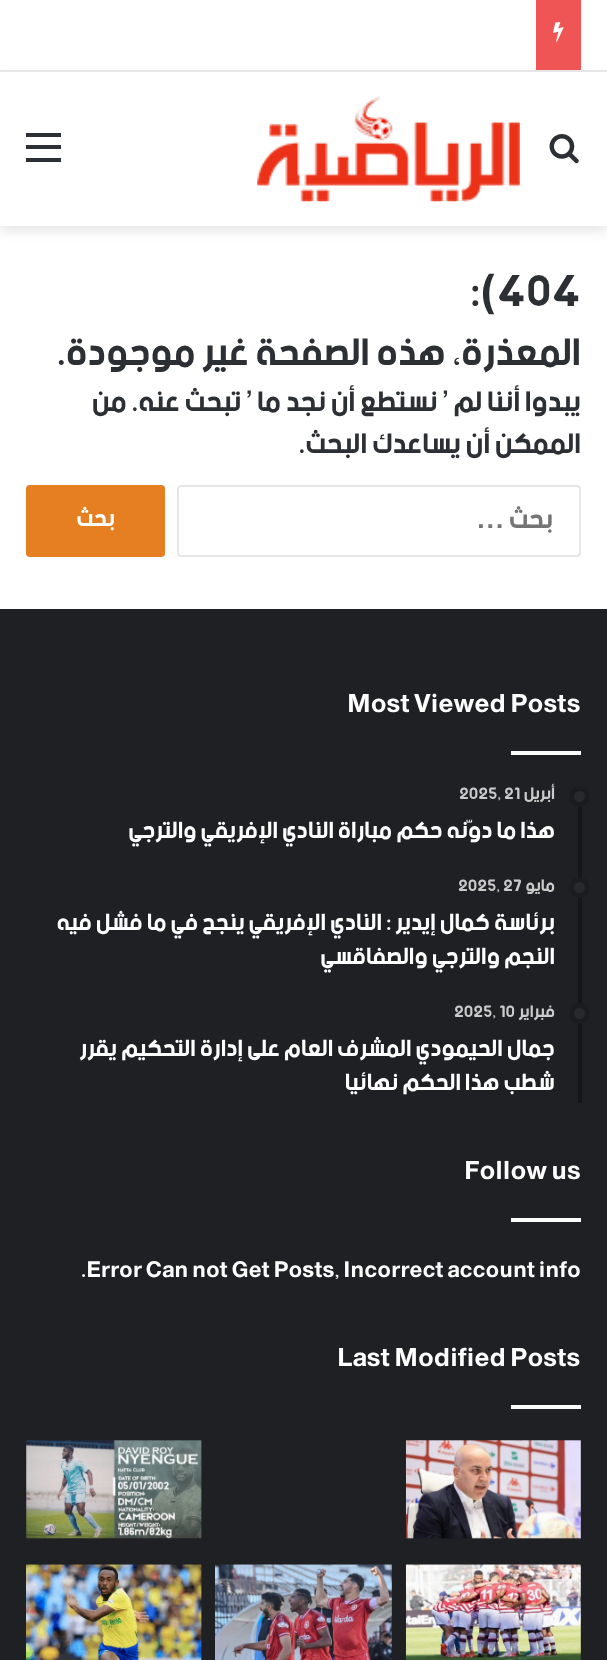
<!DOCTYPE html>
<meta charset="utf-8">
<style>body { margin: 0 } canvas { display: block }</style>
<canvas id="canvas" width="607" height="1660"></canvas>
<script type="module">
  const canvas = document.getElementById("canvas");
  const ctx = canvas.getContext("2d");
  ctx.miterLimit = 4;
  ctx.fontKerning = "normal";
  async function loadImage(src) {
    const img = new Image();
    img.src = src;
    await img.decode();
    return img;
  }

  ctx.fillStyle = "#ffffff";
  ctx.fillRect(0, 0, 607, 1660);
  ctx.fillStyle = "rgba(0, 0, 0, 0.1)";
  ctx.filter = "blur(6px)";
  ctx.beginPath();
  ctx.rect(0, 77, 607, 154);
  ctx.fill();
  ctx.filter = "none";
  ctx.fillStyle = "#ffffff";
  ctx.fillRect(10, 69, 587, 1);
  ctx.fillStyle = "#e6e6e6";
  ctx.fillRect(0, 70, 607, 2);
  ctx.fillStyle = "#f05555";
  ctx.fillRect(536, 0, 45, 70);
  ctx.drawImage(await loadImage("img1.png"), 553, 22, 11, 20);
  ctx.fillStyle = "#ffffff";
  ctx.fillRect(0, 72, 607, 154);
  ctx.drawImage(await loadImage("img2.png"), 549, 134, 30, 30);
  ctx.drawImage(await loadImage("img3.png"), 257, 96, 263, 106);
  ctx.fillStyle = "#2c2f34";
  ctx.fillRect(26, 145, 35, 4);
  ctx.fillRect(26, 133, 35, 4);
  ctx.fillRect(26, 158, 35, 4);
  ctx.font = "900 47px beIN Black";
  ctx.fillText(":(404", 470, 306);
  ctx.direction = "rtl";
  ctx.font = "900 40.25px beIN Black";
  ctx.fillText("المعذرة، هذه الصفحة غير موجودة.", 581, 365);
  ctx.font = "900 29.75px beIN Black";
  ctx.fillText("يبدوا أننا لم ’ نستطع أن نجد ما ’ تبحث عنه. من", 581, 411);
  ctx.fillText("الممكن أن يساعدك البحث.", 581, 453);
  ctx.beginPath();
  ctx.roundRect(178, 486, 402, 70, 3);
  ctx.strokeStyle = "#e6e6e6";
  ctx.lineWidth = 2;
  ctx.stroke();
  ctx.font = "900 28px beIN Black";
  ctx.fillStyle = "#757575";
  ctx.fillText("بحث …", 553, 528);
  ctx.fillStyle = "#e67e22";
  ctx.beginPath();
  ctx.roundRect(26, 485, 139, 72, 4);
  ctx.fill();
  ctx.font = "900 24.5px beIN Black";
  ctx.fillStyle = "#ffffff";
  ctx.fillText("بحث", 115, 526);
  ctx.fillStyle = "#1f2024";
  ctx.fillRect(0, 609, 607, 1051);
  ctx.direction = "ltr";
  ctx.font = "900 26.25px beIN Black";
  ctx.fillStyle = "#ffffff";
  ctx.fillText("Most Viewed Posts", 347, 712);
  ctx.fillStyle = "#fdfdfd";
  ctx.fillRect(511, 751, 70, 4);
  ctx.fillStyle = "#161619";
  ctx.fillRect(578, 786, 4, 317);
  ctx.fillStyle = "#27292d";
  ctx.beginPath();
  ctx.arc(579.5, 796.5, 10.5, 0, Math.PI * 2);
  ctx.fill();
  ctx.beginPath();
  ctx.arc(579.5, 796.5, 8, 0, Math.PI * 2);
  ctx.strokeStyle = "rgba(0, 0, 0, 0.3)";
  ctx.lineWidth = 5;
  ctx.stroke();
  ctx.direction = "rtl";
  ctx.font = "900 17.5px beIN Black";
  ctx.fillStyle = "#cacaca";
  ctx.fillText("أبريل", 555, 799);
  ctx.direction = "ltr";
  ctx.fillText("2025, 21", 459, 799);
  ctx.direction = "rtl";
  ctx.font = "900 24.5px beIN Black";
  ctx.fillStyle = "#ffffff";
  ctx.fillText("هذا ما دوّنه حكم مباراة النادي الإفريقي والترجي", 555, 838);
  ctx.fillStyle = "#27292d";
  ctx.beginPath();
  ctx.arc(579.5, 887.5, 10.5, 0, Math.PI * 2);
  ctx.fill();
  ctx.beginPath();
  ctx.arc(579.5, 887.5, 8, 0, Math.PI * 2);
  ctx.stroke();
  ctx.font = "900 17.5px beIN Black";
  ctx.fillStyle = "#cacaca";
  ctx.fillText("مايو", 555, 891);
  ctx.direction = "ltr";
  ctx.fillText("2025, 27", 458, 891);
  ctx.direction = "rtl";
  ctx.font = "900 24.5px beIN Black";
  ctx.fillStyle = "#ffffff";
  ctx.fillText("برئاسة كمال إيدير : النادي الإفريقي ينجح في ما فشل فيه", 555, 930);
  ctx.fillText("النجم والترجي والصفاقسي", 555, 964);
  ctx.fillStyle = "#27292d";
  ctx.beginPath();
  ctx.arc(579.5, 1013.5, 10.5, 0, Math.PI * 2);
  ctx.fill();
  ctx.beginPath();
  ctx.arc(579.5, 1013.5, 8, 0, Math.PI * 2);
  ctx.stroke();
  ctx.font = "900 17.5px beIN Black";
  ctx.fillStyle = "#cacaca";
  ctx.fillText("فبراير", 555, 1017);
  ctx.direction = "ltr";
  ctx.fillText("2025, 10", 454, 1017);
  ctx.direction = "rtl";
  ctx.font = "900 24.5px beIN Black";
  ctx.fillStyle = "#ffffff";
  ctx.fillText("جمال الحيمودي المشرف العام على إدارة التحكيم يقرر", 555, 1056);
  ctx.fillText("شطب هذا الحكم نهائيا", 555, 1090);
  ctx.direction = "ltr";
  ctx.font = "900 26.25px beIN Black";
  ctx.fillText("Follow us", 464, 1179);
  ctx.fillStyle = "#fdfdfd";
  ctx.fillRect(511, 1218, 70, 4);
  ctx.font = "900 22.75px beIN Black";
  ctx.fillStyle = "#ffffff";
  ctx.fillText(".Error Can not Get Posts, Incorrect account info", 81, 1277);
  ctx.font = "900 26.25px beIN Black";
  ctx.fillText("Last Modified Posts", 337, 1366);
  ctx.fillStyle = "#fdfdfd";
  ctx.fillRect(511, 1405, 70, 4);
  ctx.drawImage(await loadImage("img4.png"), 405, 1440, 176, 99);
  ctx.drawImage(await loadImage("img5.png"), 26, 1440, 176, 99);
  ctx.drawImage(await loadImage("img6.png"), 405, 1564, 176, 96);
  ctx.drawImage(await loadImage("img7.png"), 215, 1564, 177, 96);
  ctx.drawImage(await loadImage("img8.png"), 26, 1564, 176, 96);
</script>
